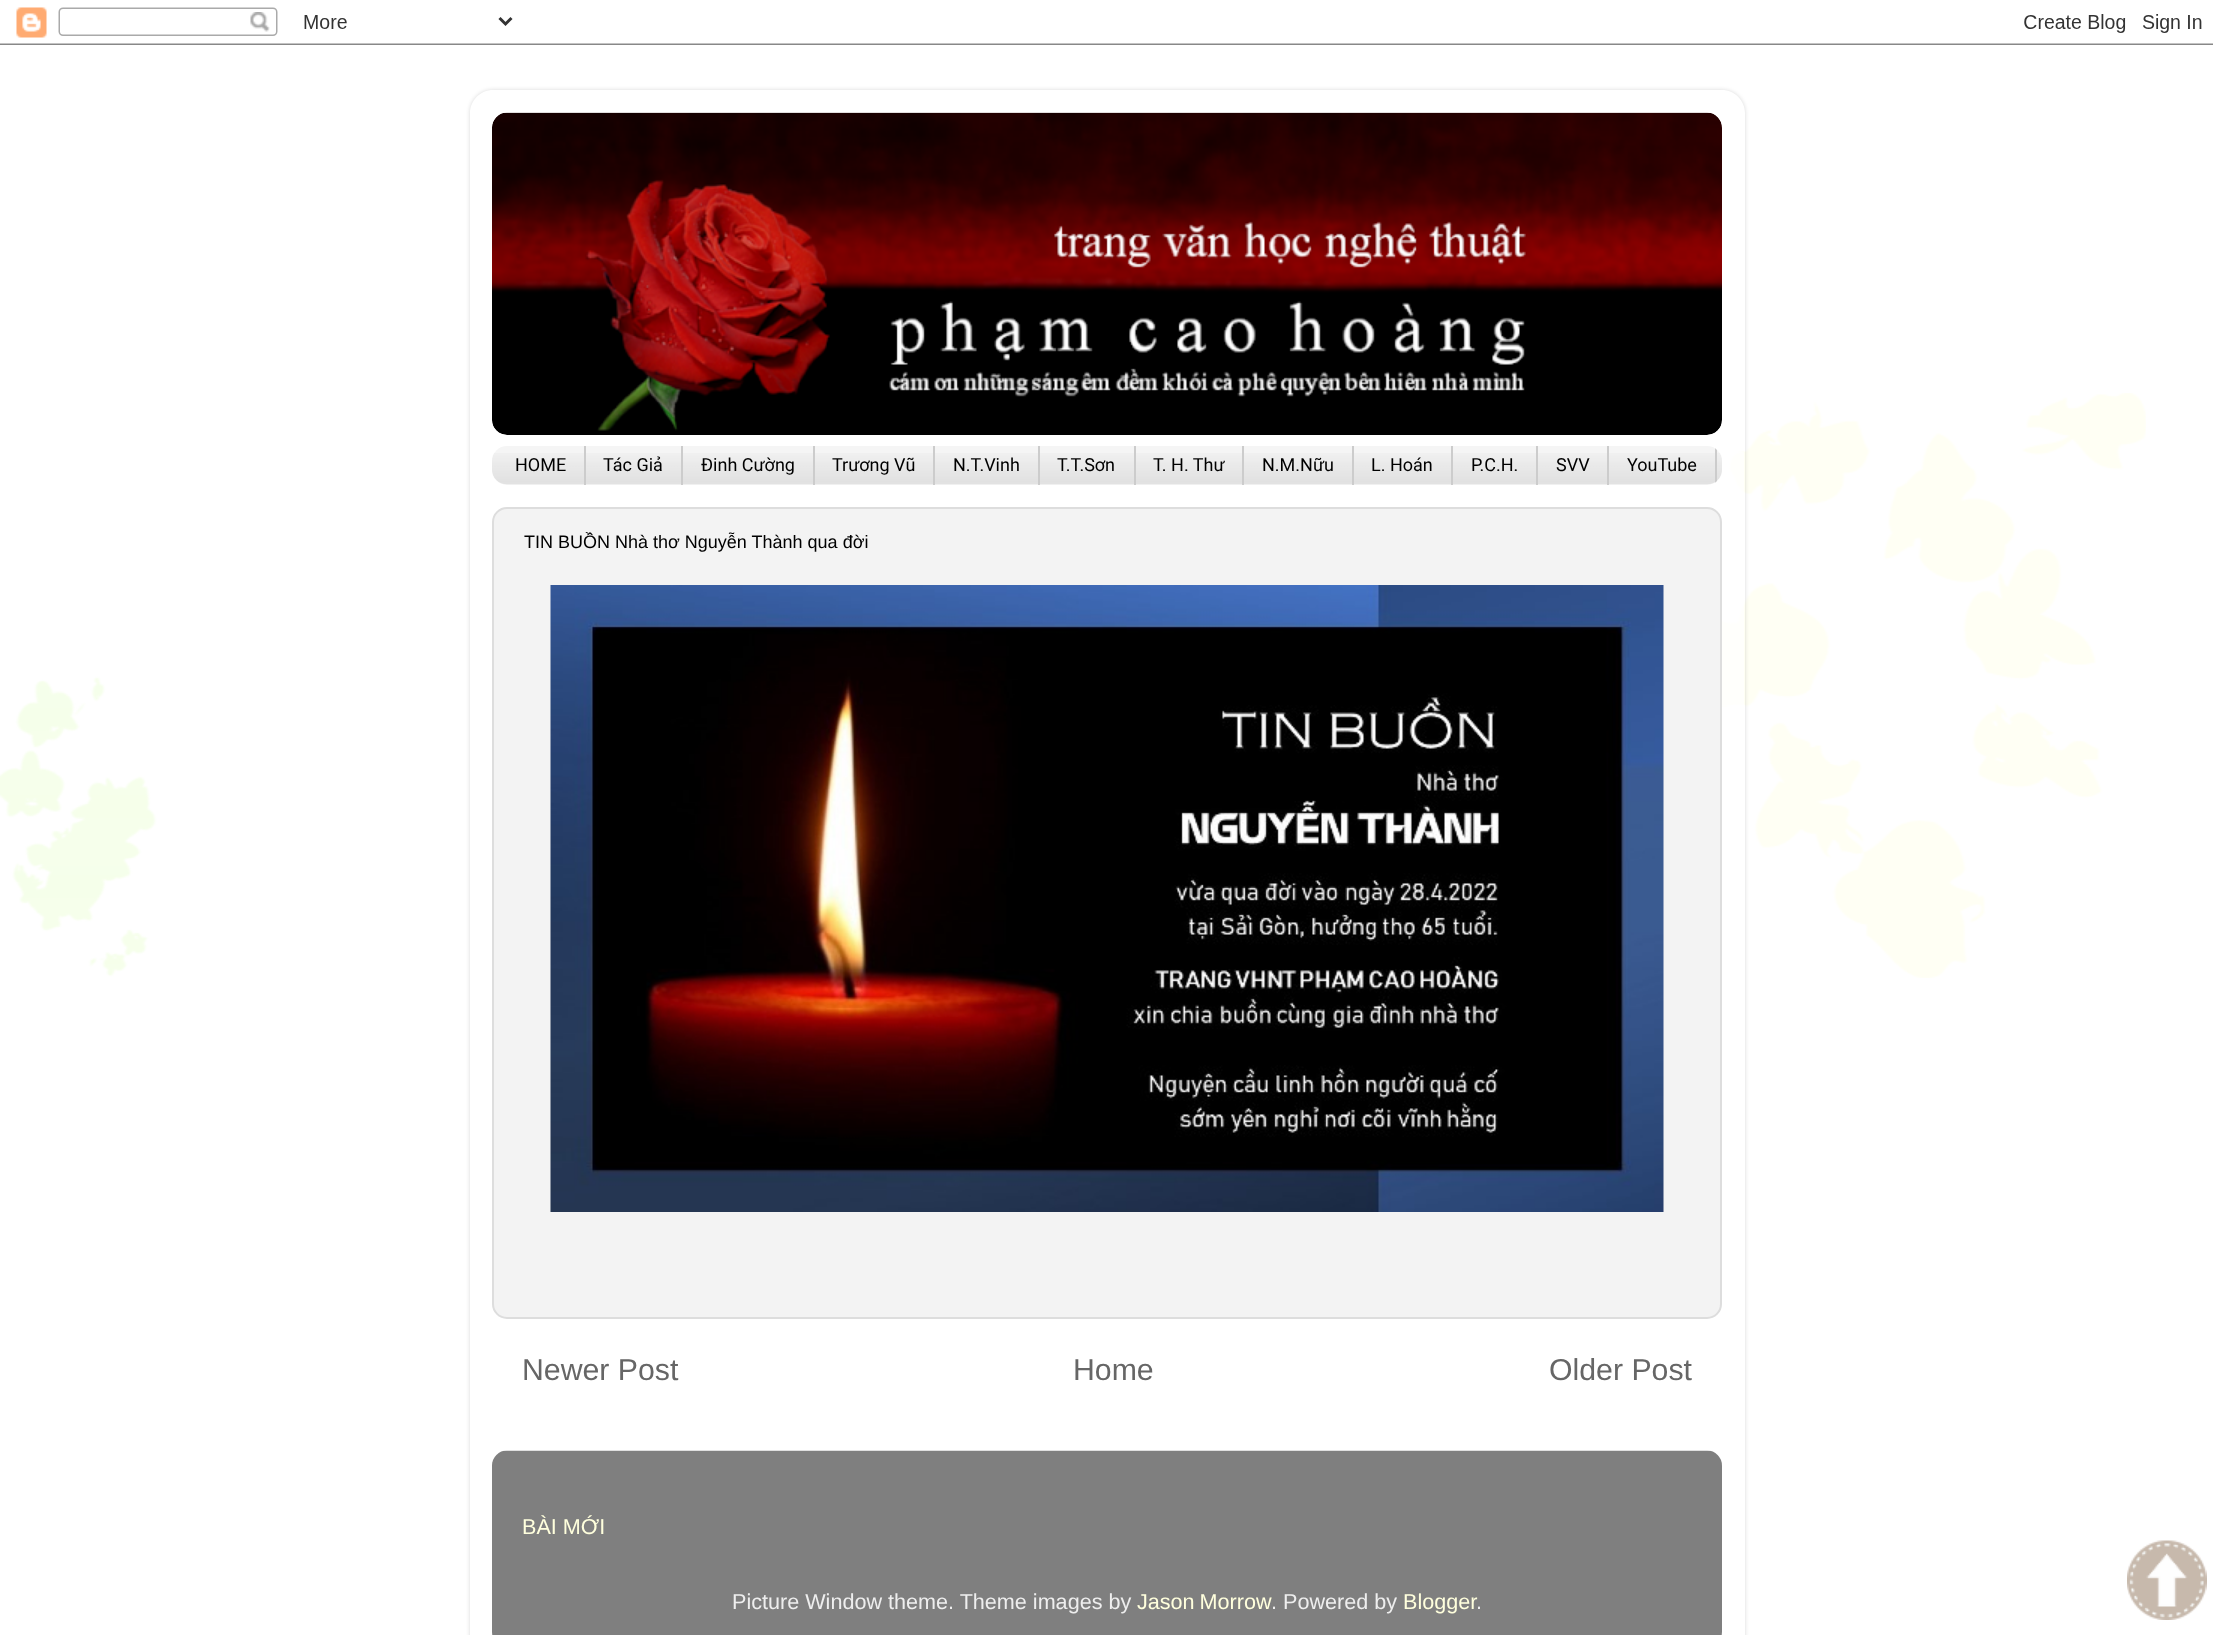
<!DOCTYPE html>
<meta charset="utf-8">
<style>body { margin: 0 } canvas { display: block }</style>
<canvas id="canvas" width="2213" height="1635"></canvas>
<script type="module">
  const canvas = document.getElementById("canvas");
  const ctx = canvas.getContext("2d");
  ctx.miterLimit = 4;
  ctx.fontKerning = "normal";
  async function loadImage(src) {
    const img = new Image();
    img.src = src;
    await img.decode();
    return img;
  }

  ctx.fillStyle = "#ffffff";
  ctx.fillRect(0, 0, 2213, 1635);
  ctx.drawImage(await loadImage("img1.png"), 0, 393, 2146, 585);
  ctx.drawImage(await loadImage("img2.png"), 0, 7, 2213, 38);
  ctx.save();
  ctx.beginPath();
  ctx.moveTo(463, 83);
  ctx.lineTo(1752, 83);
  ctx.lineTo(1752, 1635);
  ctx.lineTo(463, 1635);
  ctx.closePath();
  ctx.moveTo(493, 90);
  ctx.lineTo(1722, 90);
  ctx.bezierCurveTo(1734.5, 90, 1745, 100.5, 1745, 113);
  ctx.lineTo(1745, 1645);
  ctx.bezierCurveTo(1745, 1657.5, 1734.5, 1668, 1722, 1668);
  ctx.lineTo(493, 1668);
  ctx.bezierCurveTo(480.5, 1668, 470, 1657.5, 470, 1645);
  ctx.lineTo(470, 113);
  ctx.bezierCurveTo(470, 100.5, 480.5, 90, 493, 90);
  ctx.closePath();
  ctx.clip("evenodd");
  ctx.fillStyle = "rgba(0, 0, 0, 0.15)";
  ctx.filter = "blur(2px)";
  ctx.beginPath();
  ctx.roundRect(470, 90, 1275, 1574, 23);
  ctx.fill();
  ctx.filter = "none";
  ctx.restore();
  ctx.fillStyle = "rgba(255, 255, 255, 0.7)";
  ctx.fillRect(1678, 452, 66, 254);
  ctx.drawImage(await loadImage("img3.png"), 492, 112, 1230, 323);
  ctx.fillStyle = "#f5f5f5";
  ctx.beginPath();
  ctx.roundRect(492, 446, 1230, 39, 15);
  ctx.fill();
  ctx.drawImage(await loadImage("img4.png"), 492, 453, 1230, 32);
  ctx.fillStyle = "#cccccc";
  ctx.fillRect(584, 446, 2, 39);
  ctx.font = "18px Roboto";
  ctx.fillStyle = "#000000";
  ctx.fillText("HOME", 515, 471);
  ctx.fillStyle = "#cccccc";
  ctx.fillRect(681, 446, 2, 39);
  ctx.fillStyle = "#000000";
  ctx.fillText("Tác Giả", 603, 471);
  ctx.fillStyle = "#cccccc";
  ctx.fillRect(813, 446, 2, 39);
  ctx.fillStyle = "#000000";
  ctx.fillText("Đinh Cường", 701, 471);
  ctx.fillStyle = "#cccccc";
  ctx.fillRect(933, 446, 2, 39);
  ctx.fillStyle = "#000000";
  ctx.fillText("Trương Vũ", 832, 471);
  ctx.fillStyle = "#cccccc";
  ctx.fillRect(1038, 446, 2, 39);
  ctx.fillStyle = "#000000";
  ctx.fillText("N.T.Vinh", 953, 471);
  ctx.fillStyle = "#cccccc";
  ctx.fillRect(1134, 446, 2, 39);
  ctx.fillStyle = "#000000";
  ctx.fillText("T.T.Sơn", 1057, 471);
  ctx.fillStyle = "#cccccc";
  ctx.fillRect(1242, 446, 2, 39);
  ctx.fillStyle = "#000000";
  ctx.fillText("T. H. Thư", 1153, 471);
  ctx.fillStyle = "#cccccc";
  ctx.fillRect(1352, 446, 2, 39);
  ctx.fillStyle = "#000000";
  ctx.fillText("N.M.Nữu", 1262, 471);
  ctx.fillStyle = "#cccccc";
  ctx.fillRect(1451, 446, 2, 39);
  ctx.fillStyle = "#000000";
  ctx.fillText("L. Hoán", 1371, 471);
  ctx.fillStyle = "#cccccc";
  ctx.fillRect(1536, 446, 2, 39);
  ctx.fillStyle = "#000000";
  ctx.fillText("P.C.H.", 1471, 471);
  ctx.fillStyle = "#cccccc";
  ctx.fillRect(1607, 446, 2, 39);
  ctx.fillStyle = "#000000";
  ctx.fillText("SVV", 1556, 471);
  ctx.save();
  ctx.beginPath();
  ctx.roundRect(492, 446, 1230, 39, 15);
  ctx.clip();
  ctx.fillStyle = "#cccccc";
  ctx.fillRect(1715, 446, 2, 39);
  ctx.restore();
  ctx.fillText("YouTube", 1627, 471);
  ctx.fillStyle = "#f3f3f3";
  ctx.beginPath();
  ctx.roundRect(493, 508, 1228, 810, 14);
  ctx.fill();
  ctx.strokeStyle = "#dddddd";
  ctx.lineWidth = 2;
  ctx.stroke();
  ctx.font = "18px Liberation Sans";
  ctx.fillStyle = "#000000";
  ctx.fillText("TIN BUỒN Nhà thơ Nguyễn Thành qua đời", 524, 548);
  ctx.drawImage(await loadImage("img5.png"), 550, 585, 1114, 627);
  ctx.font = "30.25px Liberation Sans";
  ctx.fillStyle = "#666666";
  ctx.fillText("Newer Post", 522, 1380);
  ctx.fillText("Home", 1073, 1380);
  ctx.fillText("Older Post", 1549, 1380);
  ctx.drawImage(await loadImage("img6.png"), 492, 1450, 1230, 185);
  ctx.font = "21.6px Liberation Sans";
  ctx.fillStyle = "#ffffdd";
  ctx.fillText("BÀI MỚI", 522, 1534);
  ctx.fillStyle = "#eeeeee";
  ctx.fillText("Picture Window theme. Theme images by", 732, 1609);
  ctx.wordSpacing = "-1px";
  ctx.fillStyle = "#ffffdd";
  ctx.fillText("Jason Morrow", 1137, 1609);
  ctx.wordSpacing = "0px";
  ctx.fillStyle = "#eeeeee";
  ctx.fillText(". Powered by", 1271, 1609);
  ctx.fillStyle = "#ffffdd";
  ctx.fillText("Blogger", 1403, 1609);
  ctx.fillStyle = "#eeeeee";
  ctx.fillText(".", 1476, 1609);
  ctx.drawImage(await loadImage("img7.png"), 2127, 1540, 80, 80);
</script>
